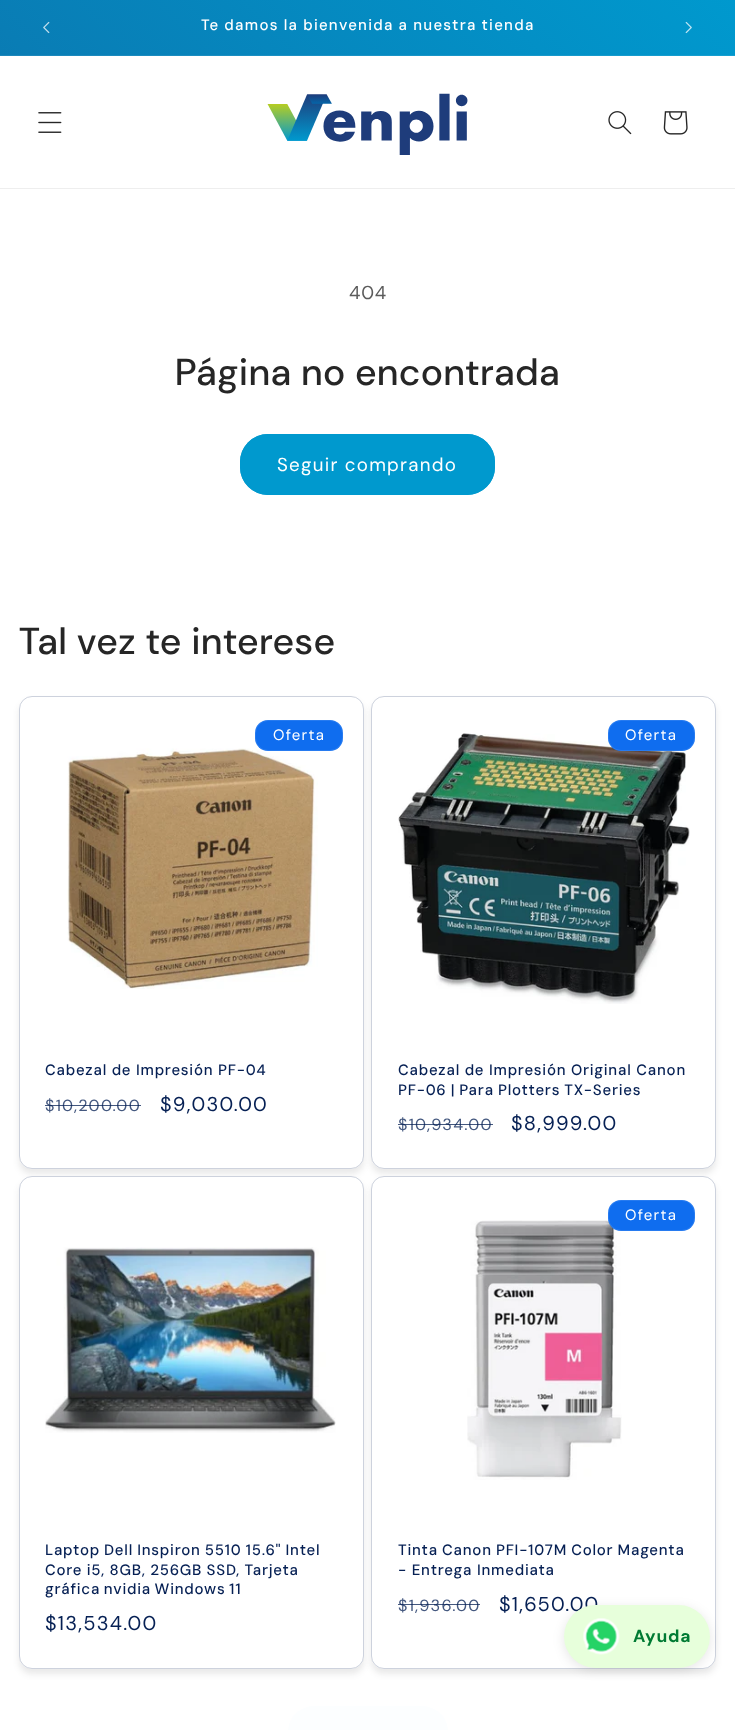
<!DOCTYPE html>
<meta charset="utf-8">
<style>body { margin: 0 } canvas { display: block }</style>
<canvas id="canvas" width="735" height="1730"></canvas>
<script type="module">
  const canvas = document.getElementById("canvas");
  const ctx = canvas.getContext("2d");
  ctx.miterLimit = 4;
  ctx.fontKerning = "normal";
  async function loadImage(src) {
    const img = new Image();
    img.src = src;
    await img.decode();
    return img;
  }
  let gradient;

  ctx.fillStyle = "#ffffff";
  ctx.fillRect(0, 0, 735, 1730);
  gradient = ctx.createLinearGradient(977, 234, -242, 1496);
  gradient.addColorStop(0, "#0099ce");
  gradient.addColorStop(1, "#1e3c7b");
  ctx.fillStyle = gradient;
  ctx.fillRect(0, 0, 735, 55);
  gradient = ctx.createLinearGradient(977, 234, -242, 1496);
  gradient.addColorStop(0, "#14a1d2");
  gradient.addColorStop(1, "#304c86");
  ctx.fillStyle = gradient;
  ctx.fillRect(0, 55, 735, 1);
  ctx.drawImage(await loadImage("img1.png"), 43, 21, 7, 13);
  ctx.letterSpacing = "1.25px";
  ctx.wordSpacing = "-0.25px";
  ctx.font = "500 15px 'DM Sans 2'";
  ctx.fillStyle = "#ffffff";
  ctx.fillText("Te damos la bienvenida a nuestra tienda", 201, 30);
  ctx.drawImage(await loadImage("img2.png"), 685, 21, 7, 13);
  ctx.fillStyle = "#eeeeee";
  ctx.fillRect(0, 188, 735, 1);
  ctx.drawImage(await loadImage("img3.png"), 38, 112, 24, 21);
  ctx.drawImage(await loadImage("img4.png"), 267, 93, 201, 62);
  ctx.drawImage(await loadImage("img5.png"), 608, 111, 24, 24);
  ctx.drawImage(await loadImage("img6.png"), 663, 111, 25, 24);
  ctx.letterSpacing = "0.75px";
  ctx.wordSpacing = "0px";
  ctx.font = "18.75px DM Sans";
  ctx.fillStyle = "#5c5c5c";
  ctx.fillText("404", 349, 299);
  ctx.font = "500 37.5px DM Sans";
  ctx.fillStyle = "#262626";
  ctx.fillText("Página no encontrada", 175, 385);
  ctx.fillStyle = "#0099ce";
  ctx.beginPath();
  ctx.roundRect(240, 434, 255, 61, 28);
  ctx.fill();
  ctx.beginPath();
  ctx.roundRect(241.5, 435.5, 252, 58, 26.5);
  ctx.strokeStyle = "#0099ce";
  ctx.lineWidth = 3;
  ctx.stroke();
  ctx.letterSpacing = "1.25px";
  ctx.font = "18.75px DM Sans";
  ctx.fillStyle = "#ffffff";
  ctx.fillText("Seguir comprando", 277, 471);
  ctx.letterSpacing = "0.75px";
  ctx.font = "500 37.5px DM Sans";
  ctx.fillStyle = "#262626";
  ctx.fillText("Tal vez te interese", 19, 654);
  ctx.beginPath();
  ctx.roundRect(19.5, 696.5, 344, 472, 12.5);
  ctx.strokeStyle = "#cdd2dd";
  ctx.lineWidth = 1;
  ctx.stroke();
  ctx.save();
  ctx.beginPath();
  ctx.moveTo(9, 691);
  ctx.lineTo(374, 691);
  ctx.lineTo(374, 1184);
  ctx.lineTo(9, 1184);
  ctx.closePath();
  ctx.moveTo(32, 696);
  ctx.lineTo(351, 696);
  ctx.bezierCurveTo(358, 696, 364, 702, 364, 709);
  ctx.lineTo(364, 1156);
  ctx.bezierCurveTo(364, 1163, 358, 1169, 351, 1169);
  ctx.lineTo(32, 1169);
  ctx.bezierCurveTo(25, 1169, 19, 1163, 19, 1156);
  ctx.lineTo(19, 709);
  ctx.bezierCurveTo(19, 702, 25, 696, 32, 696);
  ctx.closePath();
  ctx.clip("evenodd");
  ctx.fillStyle = "rgba(38, 38, 38, 0.1)";
  ctx.filter = "blur(3px)";
  ctx.beginPath();
  ctx.roundRect(19, 701, 345, 473, 13);
  ctx.fill();
  ctx.filter = "none";
  ctx.restore();
  ctx.drawImage(await loadImage("img7.png"), 67, 748, 251, 241);
  ctx.fillStyle = "#0f6def";
  ctx.beginPath();
  ctx.roundRect(255, 720, 88, 31, 13);
  ctx.fill();
  ctx.beginPath();
  ctx.roundRect(255.5, 720.5, 87, 30, 12.5);
  ctx.strokeStyle = "rgba(255, 255, 255, 0.1)";
  ctx.stroke();
  ctx.letterSpacing = "1.25px";
  ctx.font = "15px 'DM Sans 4'";
  ctx.fillStyle = "#ffffff";
  ctx.fillText("Oferta", 273, 740);
  ctx.letterSpacing = "0.75px";
  ctx.font = "500 15px 'DM Sans 2'";
  ctx.fillStyle = "#062054";
  ctx.fillText("Cabezal de Impresión PF-04", 45, 1075);
  ctx.letterSpacing = "1.25px";
  ctx.font = "16.25px 'DM Sans 2'";
  ctx.fillStyle = "#44587f";
  ctx.fillText("$10,200.00", 45, 1111);
  ctx.fillStyle = "rgba(6, 32, 84, 0.75)";
  ctx.fillRect(45, 1105, 96, 1);
  ctx.font = "20px 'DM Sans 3'";
  ctx.fillStyle = "#062054";
  ctx.fillText("$9,030.00", 160, 1111);
  ctx.beginPath();
  ctx.roundRect(371.5, 696.5, 344, 472, 12.5);
  ctx.strokeStyle = "#cdd2dd";
  ctx.stroke();
  ctx.save();
  ctx.beginPath();
  ctx.moveTo(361, 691);
  ctx.lineTo(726, 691);
  ctx.lineTo(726, 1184);
  ctx.lineTo(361, 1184);
  ctx.closePath();
  ctx.moveTo(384, 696);
  ctx.lineTo(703, 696);
  ctx.bezierCurveTo(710, 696, 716, 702, 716, 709);
  ctx.lineTo(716, 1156);
  ctx.bezierCurveTo(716, 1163, 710, 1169, 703, 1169);
  ctx.lineTo(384, 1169);
  ctx.bezierCurveTo(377, 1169, 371, 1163, 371, 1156);
  ctx.lineTo(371, 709);
  ctx.bezierCurveTo(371, 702, 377, 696, 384, 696);
  ctx.closePath();
  ctx.clip("evenodd");
  ctx.fillStyle = "rgba(38, 38, 38, 0.1)";
  ctx.filter = "blur(3px)";
  ctx.beginPath();
  ctx.roundRect(371, 701, 345, 473, 13);
  ctx.fill();
  ctx.filter = "none";
  ctx.restore();
  ctx.drawImage(await loadImage("img8.png"), 398, 733, 292, 271);
  ctx.fillStyle = "#0f6def";
  ctx.beginPath();
  ctx.roundRect(608, 720, 87, 31, 13);
  ctx.fill();
  ctx.beginPath();
  ctx.roundRect(608.5, 720.5, 86, 30, 12.5);
  ctx.strokeStyle = "rgba(255, 255, 255, 0.1)";
  ctx.stroke();
  ctx.font = "15px 'DM Sans 4'";
  ctx.fillStyle = "#ffffff";
  ctx.fillText("Oferta", 625, 740);
  ctx.letterSpacing = "0.75px";
  ctx.font = "500 15px 'DM Sans 2'";
  ctx.fillStyle = "#062054";
  ctx.fillText("Cabezal de Impresión Original Canon", 398, 1075);
  ctx.wordSpacing = "-0.5px";
  ctx.fillText("PF-06 | Para Plotters TX-Series", 398, 1095);
  ctx.letterSpacing = "1.25px";
  ctx.wordSpacing = "0px";
  ctx.font = "16.25px 'DM Sans 2'";
  ctx.fillStyle = "#44587f";
  ctx.fillText("$10,934.00", 398, 1130);
  ctx.fillStyle = "rgba(6, 32, 84, 0.75)";
  ctx.fillRect(398, 1124, 95, 1);
  ctx.font = "20px 'DM Sans 3'";
  ctx.fillStyle = "#062054";
  ctx.fillText("$8,999.00", 511, 1130);
  ctx.fillStyle = "#ffffff";
  ctx.beginPath();
  ctx.roundRect(19.5, 1176.5, 344, 492, 12.5);
  ctx.fill();
  ctx.strokeStyle = "#cdd2dd";
  ctx.stroke();
  ctx.save();
  ctx.beginPath();
  ctx.moveTo(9, 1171);
  ctx.lineTo(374, 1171);
  ctx.lineTo(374, 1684);
  ctx.lineTo(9, 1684);
  ctx.closePath();
  ctx.moveTo(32, 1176);
  ctx.lineTo(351, 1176);
  ctx.bezierCurveTo(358, 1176, 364, 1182, 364, 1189);
  ctx.lineTo(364, 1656);
  ctx.bezierCurveTo(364, 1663, 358, 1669, 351, 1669);
  ctx.lineTo(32, 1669);
  ctx.bezierCurveTo(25, 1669, 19, 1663, 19, 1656);
  ctx.lineTo(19, 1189);
  ctx.bezierCurveTo(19, 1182, 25, 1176, 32, 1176);
  ctx.closePath();
  ctx.clip("evenodd");
  ctx.fillStyle = "rgba(38, 38, 38, 0.1)";
  ctx.filter = "blur(3px)";
  ctx.beginPath();
  ctx.roundRect(19, 1181, 345, 493, 13);
  ctx.fill();
  ctx.filter = "none";
  ctx.restore();
  ctx.drawImage(await loadImage("img9.png"), 45, 1247, 291, 186);
  ctx.letterSpacing = "0.75px";
  ctx.wordSpacing = "-0.5px";
  ctx.font = "500 15px 'DM Sans 2'";
  ctx.fillStyle = "#062054";
  ctx.fillText("Laptop Dell Inspiron 5510 15.6\" Intel", 45, 1555);
  ctx.wordSpacing = "-0.25px";
  ctx.fillText("Core i5, 8GB, 256GB SSD, Tarjeta", 45, 1575);
  ctx.wordSpacing = "-1px";
  ctx.fillText("gráfica nvidia Windows 11", 45, 1594);
  ctx.letterSpacing = "1.25px";
  ctx.wordSpacing = "0px";
  ctx.font = "20px 'DM Sans 3'";
  ctx.fillText("$13,534.00", 45, 1630);
  ctx.fillStyle = "#ffffff";
  ctx.beginPath();
  ctx.roundRect(371.5, 1176.5, 344, 492, 12.5);
  ctx.fill();
  ctx.stroke();
  ctx.save();
  ctx.beginPath();
  ctx.moveTo(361, 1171);
  ctx.lineTo(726, 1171);
  ctx.lineTo(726, 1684);
  ctx.lineTo(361, 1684);
  ctx.closePath();
  ctx.moveTo(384, 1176);
  ctx.lineTo(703, 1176);
  ctx.bezierCurveTo(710, 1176, 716, 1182, 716, 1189);
  ctx.lineTo(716, 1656);
  ctx.bezierCurveTo(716, 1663, 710, 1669, 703, 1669);
  ctx.lineTo(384, 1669);
  ctx.bezierCurveTo(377, 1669, 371, 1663, 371, 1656);
  ctx.lineTo(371, 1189);
  ctx.bezierCurveTo(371, 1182, 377, 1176, 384, 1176);
  ctx.closePath();
  ctx.clip("evenodd");
  ctx.fillStyle = "rgba(38, 38, 38, 0.1)";
  ctx.filter = "blur(3px)";
  ctx.beginPath();
  ctx.roundRect(371, 1181, 345, 493, 13);
  ctx.fill();
  ctx.filter = "none";
  ctx.restore();
  ctx.drawImage(await loadImage("img10.png"), 467, 1220, 155, 260);
  ctx.fillStyle = "#0f6def";
  ctx.beginPath();
  ctx.roundRect(608, 1200, 87, 31, 13);
  ctx.fill();
  ctx.beginPath();
  ctx.roundRect(608.5, 1200.5, 86, 30, 12.5);
  ctx.strokeStyle = "rgba(255, 255, 255, 0.1)";
  ctx.stroke();
  ctx.font = "15px 'DM Sans 4'";
  ctx.fillStyle = "#ffffff";
  ctx.fillText("Oferta", 625, 1220);
  ctx.letterSpacing = "0.75px";
  ctx.wordSpacing = "-0.5px";
  ctx.font = "500 15px 'DM Sans 2'";
  ctx.fillStyle = "#062054";
  ctx.fillText("Tinta Canon PFI-107M Color Magenta", 398, 1555);
  ctx.wordSpacing = "0px";
  ctx.fillText("- Entrega Inmediata", 398, 1575);
  ctx.letterSpacing = "1.25px";
  ctx.font = "16.25px 'DM Sans 2'";
  ctx.fillStyle = "#44587f";
  ctx.fillText("$1,936.00", 398, 1611);
  ctx.fillStyle = "rgba(6, 32, 84, 0.75)";
  ctx.fillRect(398, 1604, 82, 1);
  ctx.font = "20px 'DM Sans 3'";
  ctx.fillStyle = "#062054";
  ctx.fillText("$1,650.00", 499, 1611);
  ctx.fillStyle = "#fcfeff";
  ctx.beginPath();
  ctx.roundRect(288, 1706, 160, 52, 28);
  ctx.fill();
  ctx.fillStyle = "rgba(0, 0, 0, 0.1)";
  ctx.filter = "blur(6px)";
  ctx.beginPath();
  ctx.roundRect(564, 1608, 146, 62, 31);
  ctx.fill();
  ctx.filter = "none";
  ctx.fillStyle = "#e7ffdb";
  ctx.beginPath();
  ctx.roundRect(564, 1605, 146, 63, 31.5);
  ctx.fill();
  ctx.drawImage(await loadImage("img11.png"), 583, 1618, 37, 37);
  ctx.letterSpacing = "0.75px";
  ctx.font = "bold 17.5px DM Sans";
  ctx.fillStyle = "#007b33";
  ctx.fillText("Ayuda", 633, 1642);
</script>
